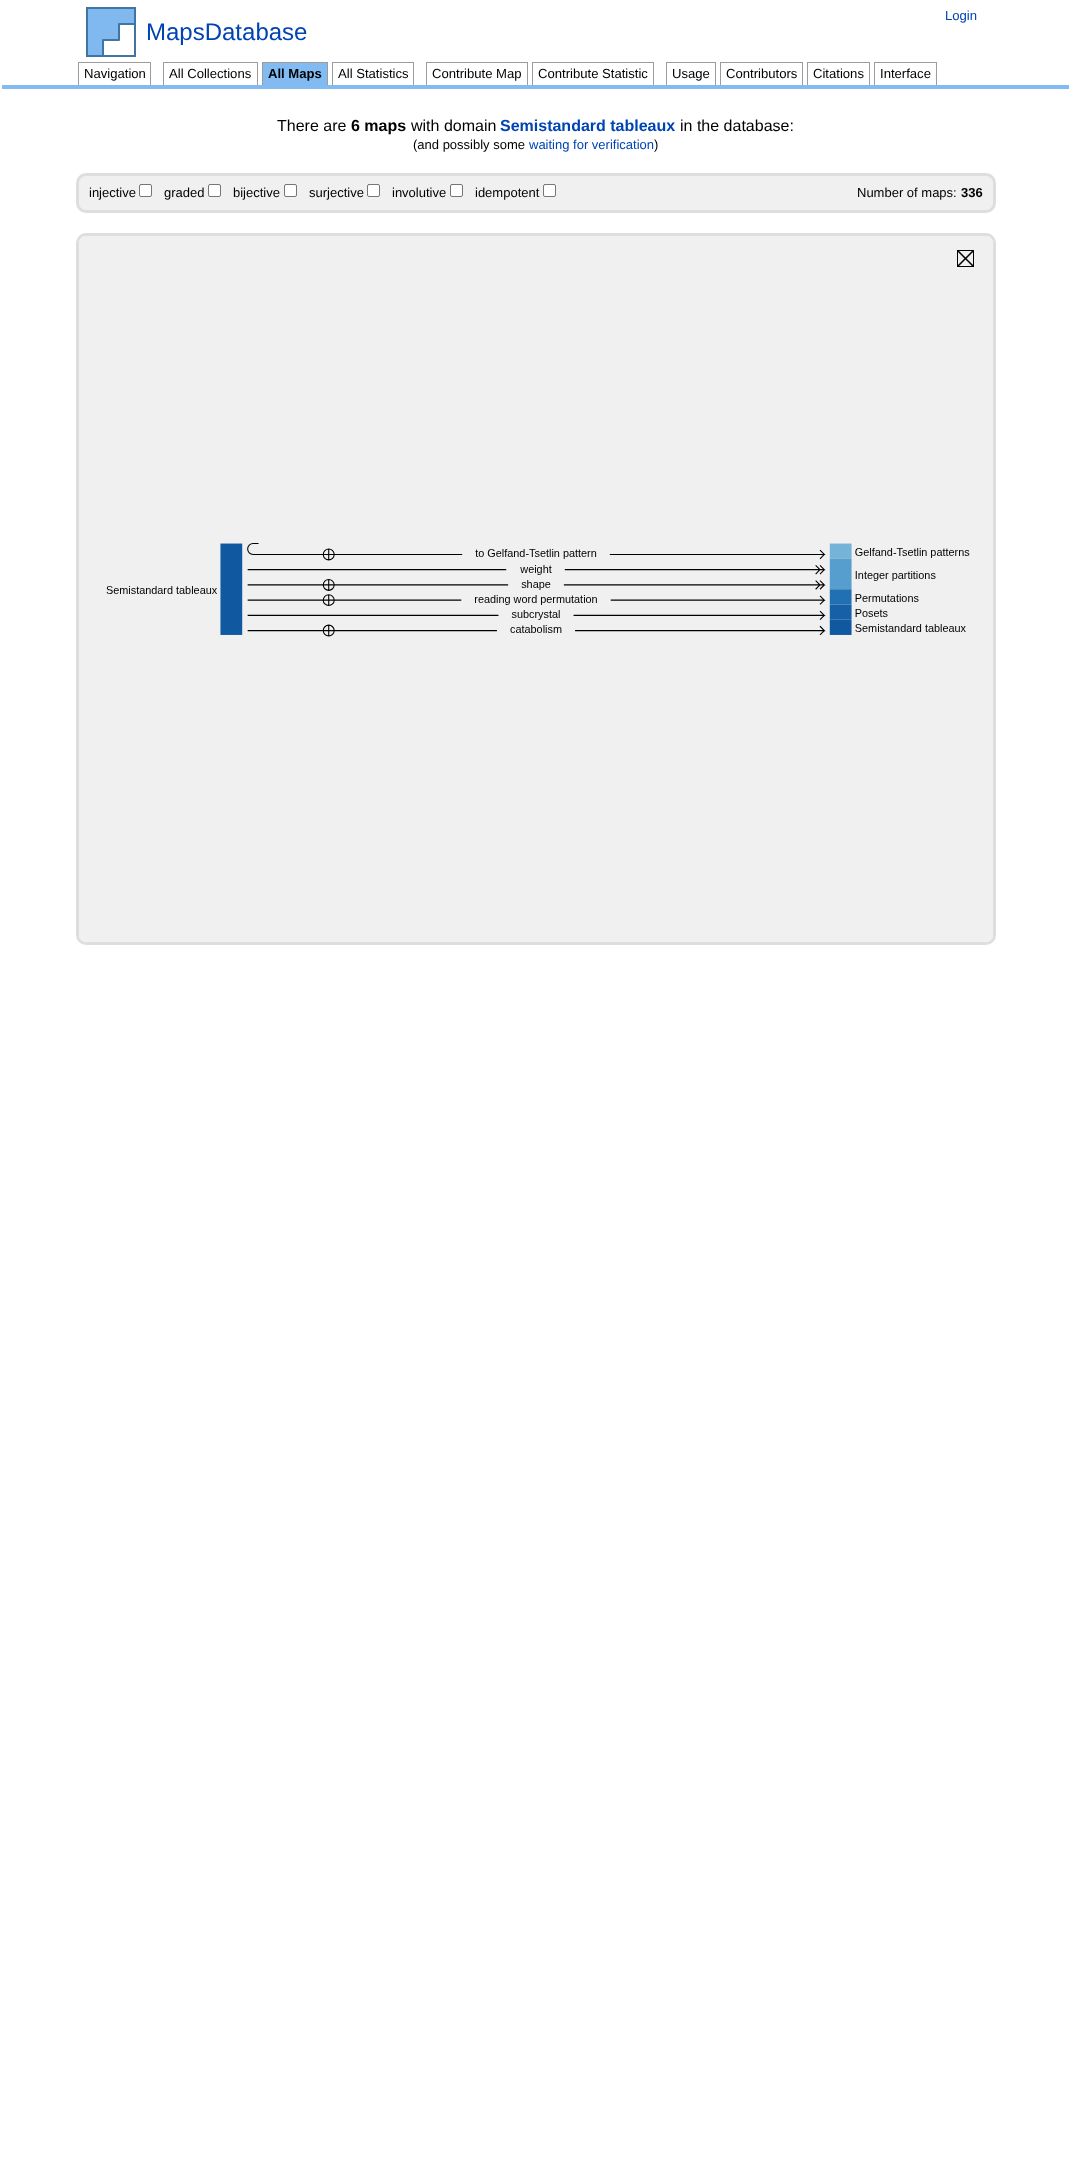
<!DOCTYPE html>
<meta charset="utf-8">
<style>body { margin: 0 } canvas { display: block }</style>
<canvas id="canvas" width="1071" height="2182"></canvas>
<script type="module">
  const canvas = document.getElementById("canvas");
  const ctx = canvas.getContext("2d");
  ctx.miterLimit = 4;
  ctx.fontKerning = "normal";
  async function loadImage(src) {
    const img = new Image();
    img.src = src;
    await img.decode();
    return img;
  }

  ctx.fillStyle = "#ffffff";
  ctx.fillRect(0, 0, 1071, 2182);
  ctx.strokeStyle = "#3f74a5";
  ctx.lineWidth = 2;
  ctx.strokeRect(87, 8, 48, 48);
  ctx.fillStyle = "#7fb9ef";
  ctx.beginPath();
  ctx.moveTo(87, 8);
  ctx.lineTo(87, 56);
  ctx.lineTo(103, 56);
  ctx.lineTo(103, 40);
  ctx.lineTo(119, 40);
  ctx.lineTo(119, 24);
  ctx.lineTo(135, 24);
  ctx.lineTo(135, 8);
  ctx.closePath();
  ctx.fill();
  ctx.lineCap = "round";
  ctx.lineJoin = "round";
  ctx.stroke();
  ctx.font = "13.1px Liberation Sans";
  ctx.fillStyle = "#0044b3";
  ctx.fillText("Login", 945, 20);
  ctx.font = "24px Liberation Sans";
  ctx.fillText("MapsDatabase", 146, 40);
  ctx.fillStyle = "#9c9c9c";
  ctx.fillRect(78, 62, 73, 1);
  ctx.fillRect(150, 62, 1, 23);
  ctx.fillRect(78, 62, 1, 23);
  ctx.font = "13.1px Liberation Sans";
  ctx.fillStyle = "#000000";
  ctx.fillText("Navigation", 84, 78);
  ctx.fillStyle = "#9c9c9c";
  ctx.fillRect(163, 62, 95, 1);
  ctx.fillRect(257, 62, 1, 23);
  ctx.fillRect(163, 62, 1, 23);
  ctx.fillStyle = "#000000";
  ctx.fillText("All Collections", 169, 78);
  ctx.fillStyle = "#81bbf2";
  ctx.fillRect(263, 63, 64, 22);
  ctx.fillStyle = "#9c9c9c";
  ctx.fillRect(262, 62, 66, 1);
  ctx.fillRect(327, 62, 1, 23);
  ctx.fillRect(262, 62, 1, 23);
  ctx.font = "bold 13.1px Liberation Sans";
  ctx.fillStyle = "#000000";
  ctx.fillText("All Maps", 268, 78);
  ctx.fillStyle = "#9c9c9c";
  ctx.fillRect(332, 62, 82, 1);
  ctx.fillRect(413, 62, 1, 23);
  ctx.fillRect(332, 62, 1, 23);
  ctx.font = "13.1px Liberation Sans";
  ctx.fillStyle = "#000000";
  ctx.fillText("All Statistics", 338, 78);
  ctx.fillStyle = "#9c9c9c";
  ctx.fillRect(426, 62, 102, 1);
  ctx.fillRect(527, 62, 1, 23);
  ctx.fillRect(426, 62, 1, 23);
  ctx.fillStyle = "#000000";
  ctx.fillText("Contribute Map", 432, 78);
  ctx.fillStyle = "#9c9c9c";
  ctx.fillRect(532, 62, 122, 1);
  ctx.fillRect(653, 62, 1, 23);
  ctx.fillRect(532, 62, 1, 23);
  ctx.fillStyle = "#000000";
  ctx.fillText("Contribute Statistic", 538, 78);
  ctx.fillStyle = "#9c9c9c";
  ctx.fillRect(666, 62, 50, 1);
  ctx.fillRect(715, 62, 1, 23);
  ctx.fillRect(666, 62, 1, 23);
  ctx.fillStyle = "#000000";
  ctx.fillText("Usage", 672, 78);
  ctx.fillStyle = "#9c9c9c";
  ctx.fillRect(720, 62, 83, 1);
  ctx.fillRect(802, 62, 1, 23);
  ctx.fillRect(720, 62, 1, 23);
  ctx.fillStyle = "#000000";
  ctx.fillText("Contributors", 726, 78);
  ctx.fillStyle = "#9c9c9c";
  ctx.fillRect(807, 62, 63, 1);
  ctx.fillRect(869, 62, 1, 23);
  ctx.fillRect(807, 62, 1, 23);
  ctx.fillStyle = "#000000";
  ctx.fillText("Citations", 813, 78);
  ctx.fillStyle = "#9c9c9c";
  ctx.fillRect(874, 62, 63, 1);
  ctx.fillRect(936, 62, 1, 23);
  ctx.fillRect(874, 62, 1, 23);
  ctx.fillStyle = "#000000";
  ctx.fillText("Interface", 880, 78);
  ctx.fillStyle = "#81bbf2";
  ctx.fillRect(2, 85, 1067, 4);
  ctx.font = "16px Liberation Sans";
  ctx.fillStyle = "#000000";
  ctx.fillText("There are", 277, 131);
  ctx.font = "bold 16px Liberation Sans";
  ctx.fillText("6 maps", 351, 131);
  ctx.font = "16px Liberation Sans";
  ctx.fillText("with domain", 411, 131);
  ctx.font = "bold 16px Liberation Sans";
  ctx.fillStyle = "#0044b3";
  ctx.fillText("Semistandard tableaux", 500, 131);
  ctx.font = "16px Liberation Sans";
  ctx.fillStyle = "#000000";
  ctx.fillText("in the database:", 680, 131);
  ctx.font = "13px Liberation Sans";
  ctx.fillText("(and possibly some", 413, 149);
  ctx.fillStyle = "#0044b3";
  ctx.fillText("waiting for verification", 529, 149);
  ctx.fillStyle = "#000000";
  ctx.fillText(")", 654, 149);
  ctx.fillStyle = "#f0f0f0";
  ctx.beginPath();
  ctx.roundRect(77.5, 174.5, 917, 37, 8.5);
  ctx.fill();
  ctx.strokeStyle = "#dedede";
  ctx.lineWidth = 3;
  ctx.lineJoin = "miter";
  ctx.stroke();
  ctx.fillStyle = "#000000";
  ctx.fillText("injective", 89, 197);
  ctx.fillStyle = "#ffffff";
  ctx.beginPath();
  ctx.roundRect(139.5, 184.5, 12, 12, 1.5);
  ctx.fill();
  ctx.strokeStyle = "#767676";
  ctx.lineWidth = 1;
  ctx.stroke();
  ctx.fillStyle = "#000000";
  ctx.fillText("graded", 164, 197);
  ctx.fillStyle = "#ffffff";
  ctx.beginPath();
  ctx.roundRect(208.5, 184.5, 12, 12, 1.5);
  ctx.fill();
  ctx.stroke();
  ctx.fillStyle = "#000000";
  ctx.fillText("bijective", 233, 197);
  ctx.fillStyle = "#ffffff";
  ctx.beginPath();
  ctx.roundRect(284.5, 184.5, 12, 12, 1.5);
  ctx.fill();
  ctx.stroke();
  ctx.fillStyle = "#000000";
  ctx.fillText("surjective", 309, 197);
  ctx.fillStyle = "#ffffff";
  ctx.beginPath();
  ctx.roundRect(367.5, 184.5, 12, 12, 1.5);
  ctx.fill();
  ctx.stroke();
  ctx.fillStyle = "#000000";
  ctx.fillText("involutive", 392, 197);
  ctx.fillStyle = "#ffffff";
  ctx.beginPath();
  ctx.roundRect(450.5, 184.5, 12, 12, 1.5);
  ctx.fill();
  ctx.stroke();
  ctx.fillStyle = "#000000";
  ctx.fillText("idempotent", 475, 197);
  ctx.fillStyle = "#ffffff";
  ctx.beginPath();
  ctx.roundRect(543.5, 184.5, 12, 12, 1.5);
  ctx.fill();
  ctx.stroke();
  ctx.fillStyle = "#000000";
  ctx.fillText("Number of maps:", 857, 197);
  ctx.font = "bold 13px Liberation Sans";
  ctx.fillText("336", 961, 197);
  ctx.beginPath();
  ctx.roundRect(77.5, 234.5, 917, 709, 8.5);
  ctx.strokeStyle = "#dedede";
  ctx.lineWidth = 3;
  ctx.stroke();
  ctx.fillStyle = "#f0f0f0";
  ctx.beginPath();
  ctx.roundRect(79, 236, 914, 706, 7);
  ctx.fill();
  ctx.strokeStyle = "#000000";
  ctx.lineWidth = 1;
  ctx.strokeRect(957.5, 250.5, 16, 16);
  ctx.drawImage(await loadImage("img1.png"), 958, 251, 15, 15);
  ctx.drawImage(await loadImage("img2.png"), 106, 543, 864, 94);
</script>
